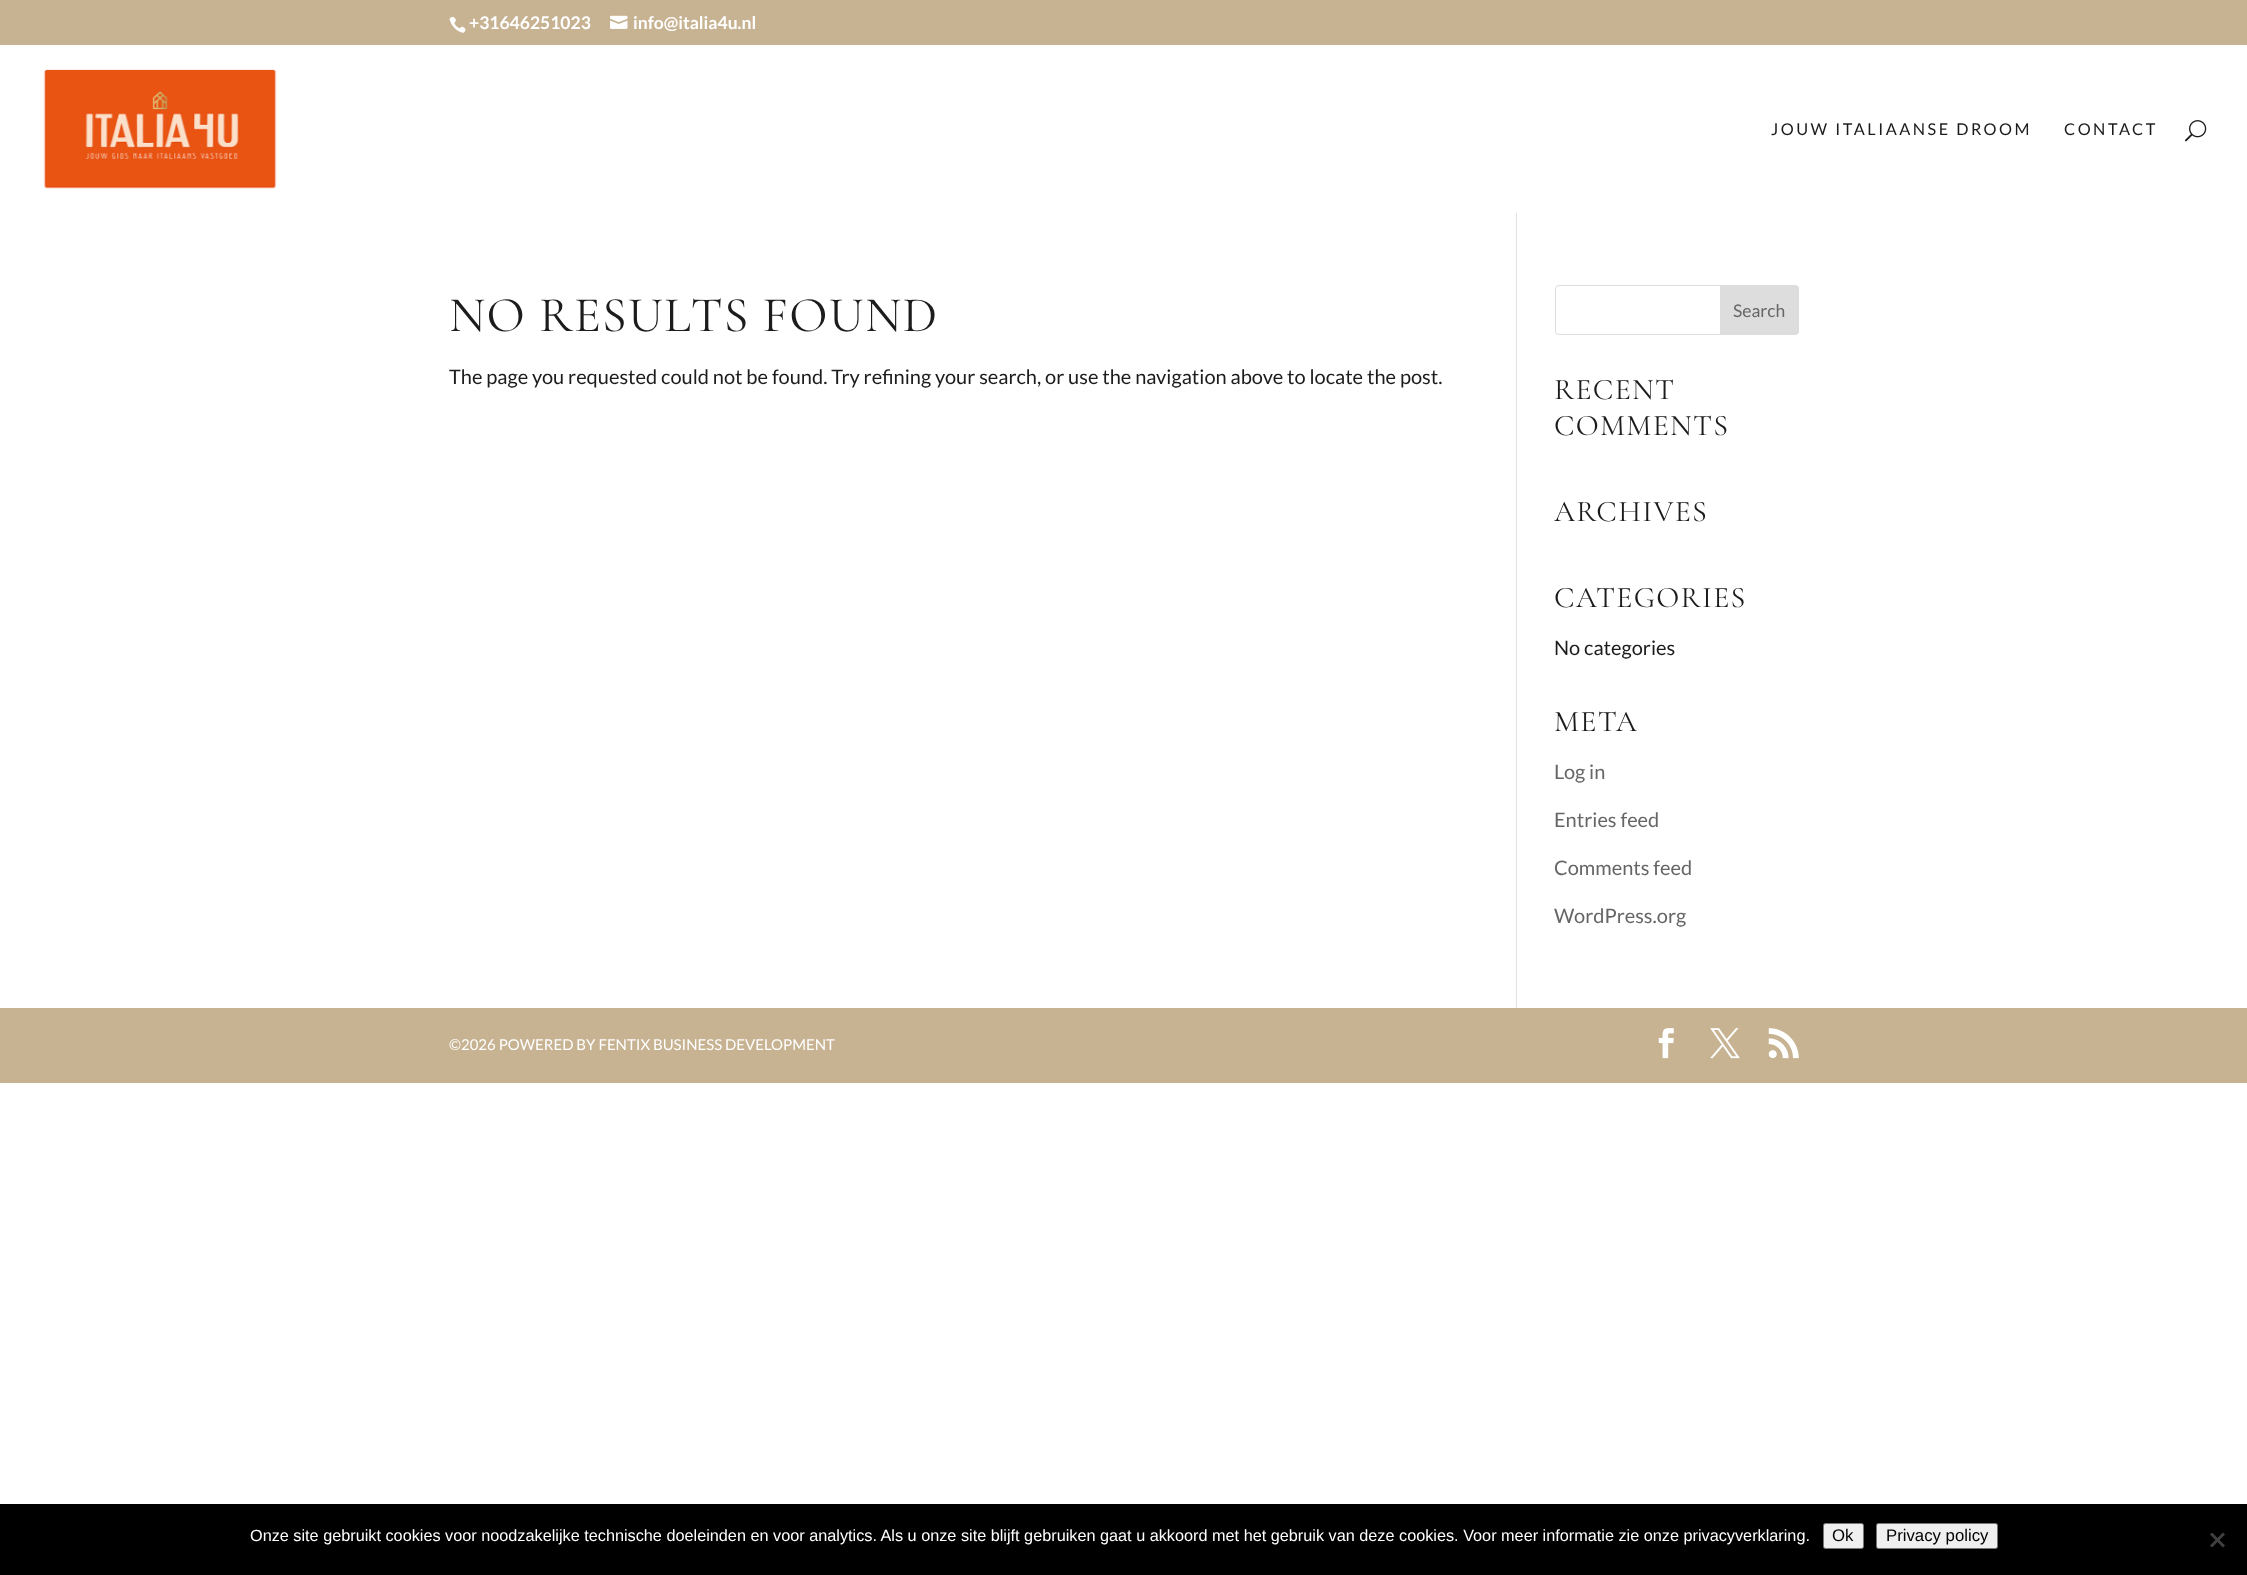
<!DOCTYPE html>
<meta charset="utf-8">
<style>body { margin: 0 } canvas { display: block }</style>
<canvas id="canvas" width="2247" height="1575"></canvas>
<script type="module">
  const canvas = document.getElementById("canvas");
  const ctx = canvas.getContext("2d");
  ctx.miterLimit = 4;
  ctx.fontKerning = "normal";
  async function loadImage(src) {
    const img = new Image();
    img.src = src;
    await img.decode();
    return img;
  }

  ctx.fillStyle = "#ffffff";
  ctx.fillRect(0, 0, 2247, 1575);
  ctx.fillStyle = "#c7b291";
  ctx.fillRect(0, 0, 2247, 45);
  ctx.drawImage(await loadImage("img1.png"), 449, 16, 17, 17);
  ctx.font = "bold 17.5px Lato";
  ctx.fillStyle = "#ffffff";
  ctx.fillText("+31646251023", 469, 29);
  ctx.drawImage(await loadImage("img2.png"), 610, 15, 18, 14);
  ctx.fillText("info@italia4u.nl", 633, 29);
  ctx.drawImage(await loadImage("img3.png"), 43, 69, 234, 120);
  ctx.letterSpacing = "2.5px";
  ctx.font = "16.25px Lato";
  ctx.fillStyle = "#1c1c1c";
  ctx.fillText("JOUW ITALIAANSE DROOM", 1771, 135);
  ctx.fillText("CONTACT", 2064, 135);
  ctx.drawImage(await loadImage("img4.png"), 2185, 120, 22, 22);
  ctx.fillStyle = "#e2e2e2";
  ctx.fillRect(1516, 213, 1, 795);
  ctx.letterSpacing = "1.25px";
  ctx.font = "50px Cormorant Garamond";
  ctx.fillStyle = "#1c1c1c";
  ctx.fillText("NO RESULTS FOUND", 449, 331);
  ctx.letterSpacing = "0px";
  ctx.font = "20px Lato";
  ctx.fillText("The page you requested could not be found. Try refining your search, or use the navigation above to locate the post.", 449, 384);
  ctx.beginPath();
  ctx.roundRect(1555.5, 285.5, 243, 49, 3.5);
  ctx.strokeStyle = "#dddddd";
  ctx.stroke();
  ctx.fillStyle = "#dddddd";
  ctx.beginPath();
  ctx.roundRect(1720.5, 285.5, 78, 49, [0, 3.5, 3.5, 0]);
  ctx.fill();
  ctx.stroke();
  ctx.font = "17.5px Lato";
  ctx.fillStyle = "#666666";
  ctx.fillText("Search", 1733, 317);
  ctx.letterSpacing = "1.25px";
  ctx.font = "30px Cormorant Garamond";
  ctx.fillStyle = "#1c1c1c";
  ctx.fillText("RECENT", 1554, 399);
  ctx.fillText("COMMENTS", 1554, 435);
  ctx.fillText("ARCHIVES", 1554, 521);
  ctx.fillText("CATEGORIES", 1554, 607);
  ctx.letterSpacing = "0px";
  ctx.font = "20px Lato";
  ctx.fillText("No categories", 1554, 655);
  ctx.letterSpacing = "1.25px";
  ctx.font = "30px Cormorant Garamond";
  ctx.fillText("META", 1554, 731);
  ctx.letterSpacing = "0px";
  ctx.font = "20px Lato";
  ctx.fillStyle = "#666666";
  ctx.fillText("Log in", 1554, 779);
  ctx.fillText("Entries feed", 1554, 827);
  ctx.fillText("Comments feed", 1554, 875);
  ctx.fillText("WordPress.org", 1554, 923);
  ctx.fillStyle = "#c7b291";
  ctx.fillRect(0, 1008, 2247, 75);
  ctx.font = "15px Lato";
  ctx.fillStyle = "#ffffff";
  ctx.fillText("©2026 POWERED BY FENTIX BUSINESS DEVELOPMENT", 449, 1050);
  ctx.drawImage(await loadImage("img5.png"), 1658, 1028, 16, 31);
  ctx.drawImage(await loadImage("img6.png"), 1710, 1028, 30, 31);
  ctx.drawImage(await loadImage("img7.png"), 1768, 1028, 31, 31);
  ctx.fillStyle = "#000000";
  ctx.fillRect(0, 1504, 2247, 71);
  ctx.font = "16.25px Liberation Sans";
  ctx.fillStyle = "#ffffff";
  ctx.fillText("Onze site gebruikt cookies voor noodzakelijke technische doeleinden en voor analytics. Als u onze site blijft gebruiken gaat u akkoord met het gebruik van deze cookies. Voor meer informatie zie onze privacyverklaring.", 250, 1541);
  ctx.fillStyle = "#efefef";
  ctx.beginPath();
  ctx.roundRect(1823.5, 1523.5, 40, 25, 2);
  ctx.fill();
  ctx.strokeStyle = "#767676";
  ctx.stroke();
  ctx.font = "16.75px Liberation Sans";
  ctx.fillStyle = "#000000";
  ctx.fillText("Ok", 1832, 1541);
  ctx.fillStyle = "#efefef";
  ctx.beginPath();
  ctx.roundRect(1876.5, 1523.5, 121, 25, 2);
  ctx.fill();
  ctx.stroke();
  ctx.fillStyle = "#000000";
  ctx.fillText("Privacy policy", 1886, 1541);
  ctx.fillStyle = "#404040";
  ctx.beginPath();
  ctx.moveTo(2223, 1532.5);
  ctx.lineTo(2225, 1534.5);
  ctx.lineTo(2212, 1547.5);
  ctx.lineTo(2210, 1545.5);
  ctx.closePath();
  ctx.fill();
  ctx.beginPath();
  ctx.moveTo(2210, 1534.5);
  ctx.lineTo(2212, 1532.5);
  ctx.lineTo(2225, 1545.5);
  ctx.lineTo(2223, 1547.5);
  ctx.closePath();
  ctx.fill();
</script>
